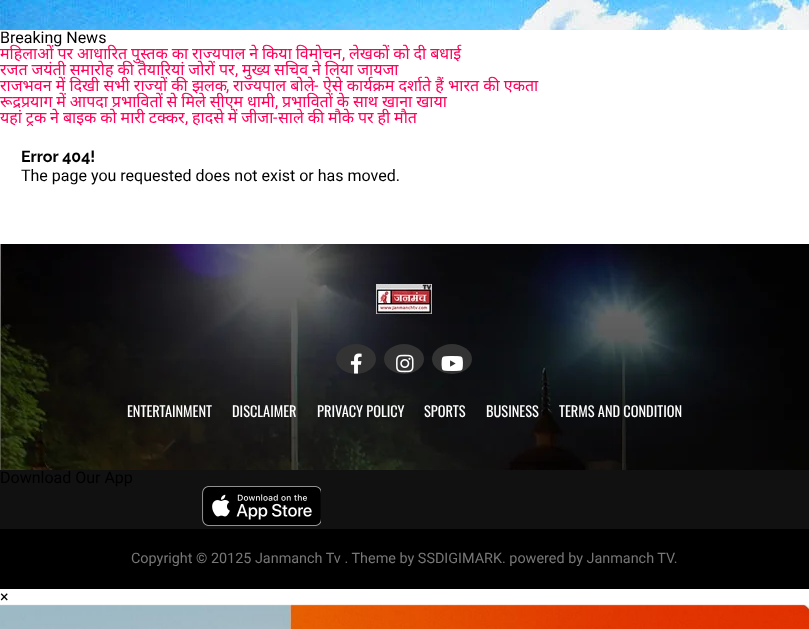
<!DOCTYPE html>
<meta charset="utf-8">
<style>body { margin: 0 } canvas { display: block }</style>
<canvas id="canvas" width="809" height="629"></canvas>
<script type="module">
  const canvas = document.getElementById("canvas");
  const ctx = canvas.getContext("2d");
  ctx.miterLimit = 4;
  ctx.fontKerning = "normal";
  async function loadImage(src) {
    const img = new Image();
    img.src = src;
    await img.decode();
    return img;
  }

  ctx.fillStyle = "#ffffff";
  ctx.fillRect(0, 0, 809, 629);
  ctx.drawImage(await loadImage("img1.png"), 0, 0, 809, 30);
  ctx.font = "16px Roboto";
  ctx.fillStyle = "#000000";
  ctx.fillText("Breaking News", 0, 43);
  ctx.wordSpacing = "-0.25px";
  ctx.font = "16px Noto Sans";
  ctx.fillStyle = "#ff005b";
  ctx.fillText("महिलाओं पर आधारित पुस्तक का राज्यपाल ने किया विमोचन", 0, 59);
  ctx.wordSpacing = "0px";
  ctx.font = "16px Roboto";
  ctx.fillText(",", 342, 59);
  ctx.wordSpacing = "-0.25px";
  ctx.font = "16px Noto Sans";
  ctx.fillText("लेखकों को दी बधाई", 349, 59);
  ctx.fillText("रजत जयंती समारोह की तैयारियां जोरों पर", 0, 75);
  ctx.wordSpacing = "0px";
  ctx.font = "16px Roboto";
  ctx.fillText(",", 235, 75);
  ctx.wordSpacing = "-0.25px";
  ctx.font = "16px Noto Sans";
  ctx.fillText("मुख्य सचिव ने लिया जायजा", 242, 75);
  ctx.wordSpacing = "0px";
  ctx.fillText("राजभवन में दिखी सभी राज्यों की झलक", 0, 91);
  ctx.fillText("राज्यपाल बोले", 233, 91);
  ctx.font = "16px Roboto";
  ctx.fillText("-", 314, 91);
  ctx.font = "16px Noto Sans";
  ctx.fillText("ऐसे कार्यक्रम दर्शाते हैं भारत की एकता", 323, 91);
  ctx.font = "16px Roboto";
  ctx.fillText(",", 226, 91);
  ctx.wordSpacing = "-0.25px";
  ctx.font = "16px Noto Sans";
  ctx.fillText("रूद्रप्रयाग में आपदा प्रभावितों से मिले सीएम धामी", 0, 107);
  ctx.wordSpacing = "0px";
  ctx.font = "16px Roboto";
  ctx.fillText(",", 275, 107);
  ctx.wordSpacing = "-0.25px";
  ctx.font = "16px Noto Sans";
  ctx.fillText("प्रभावितों के साथ खाना खाया", 282, 107);
  ctx.fillText("यहां ट्रक ने बाइक को मारी टक्कर", 0, 123);
  ctx.fillText("हादसे में जीजा", 192, 123);
  ctx.wordSpacing = "0px";
  ctx.font = "16px Roboto";
  ctx.fillText("-", 273, 123);
  ctx.wordSpacing = "-0.25px";
  ctx.font = "16px Noto Sans";
  ctx.fillText("साले की मौके पर ही मौत", 278, 123);
  ctx.wordSpacing = "0px";
  ctx.font = "16px Roboto";
  ctx.fillText(",", 185, 123);
  ctx.fillStyle = "#ffffff";
  ctx.fillRect(19, 126, 6, 1);
  ctx.font = "bold 16px Raleway";
  ctx.fillStyle = "#000000";
  ctx.fillText("Error 404!", 21, 162);
  ctx.font = "16px Roboto";
  ctx.fillText("The page you requested does not exist or has moved.", 21, 181);
  ctx.fillStyle = "#111111";
  ctx.fillRect(0, 470, 809, 59);
  ctx.drawImage(await loadImage("img2.png"), 0, 244, 809, 226);
  ctx.drawImage(await loadImage("img3.png"), 376, 284, 56, 30);
  ctx.fillStyle = "#333333";
  ctx.beginPath();
  ctx.ellipse(356, 359, 20, 15, 0, 0, Math.PI * 2);
  ctx.fill();
  ctx.drawImage(await loadImage("img4.png"), 350, 353, 12, 21);
  ctx.beginPath();
  ctx.ellipse(404, 359, 20, 15, 0, 0, Math.PI * 2);
  ctx.fill();
  ctx.drawImage(await loadImage("img5.png"), 396, 354, 18, 19);
  ctx.beginPath();
  ctx.ellipse(452, 359, 20, 15, 0, 0, Math.PI * 2);
  ctx.fill();
  ctx.drawImage(await loadImage("img6.png"), 441, 356, 22, 15);
  ctx.font = "14.4px Oswald";
  ctx.fillStyle = "#ffffff";
  ctx.fillText("ENTERTAINMENT", 127, 417);
  ctx.fillText("DISCLAIMER", 232, 417);
  ctx.fillText("PRIVACY POLICY", 317, 417);
  ctx.fillText("SPORTS", 424, 417);
  ctx.fillText("BUSINESS", 486, 417);
  ctx.fillText("TERMS AND CONDITION", 559, 417);
  ctx.font = "16px Roboto";
  ctx.fillStyle = "#000000";
  ctx.fillText("Download Our App", 0, 483);
  ctx.drawImage(await loadImage("img7.png"), 202, 486, 119, 40);
  ctx.fillRect(0, 529, 809, 60);
  ctx.font = "14.4px Roboto";
  ctx.fillStyle = "#777777";
  ctx.fillText("Copyright © 20125 Janmanch Tv . Theme by SSDIGIMARK. powered by Janmanch TV.", 131, 563);
  ctx.font = "16px Roboto";
  ctx.fillStyle = "#000000";
  ctx.fillText("×", 0, 602);
  ctx.drawImage(await loadImage("img8.png"), 0, 604, 809, 25);
</script>
